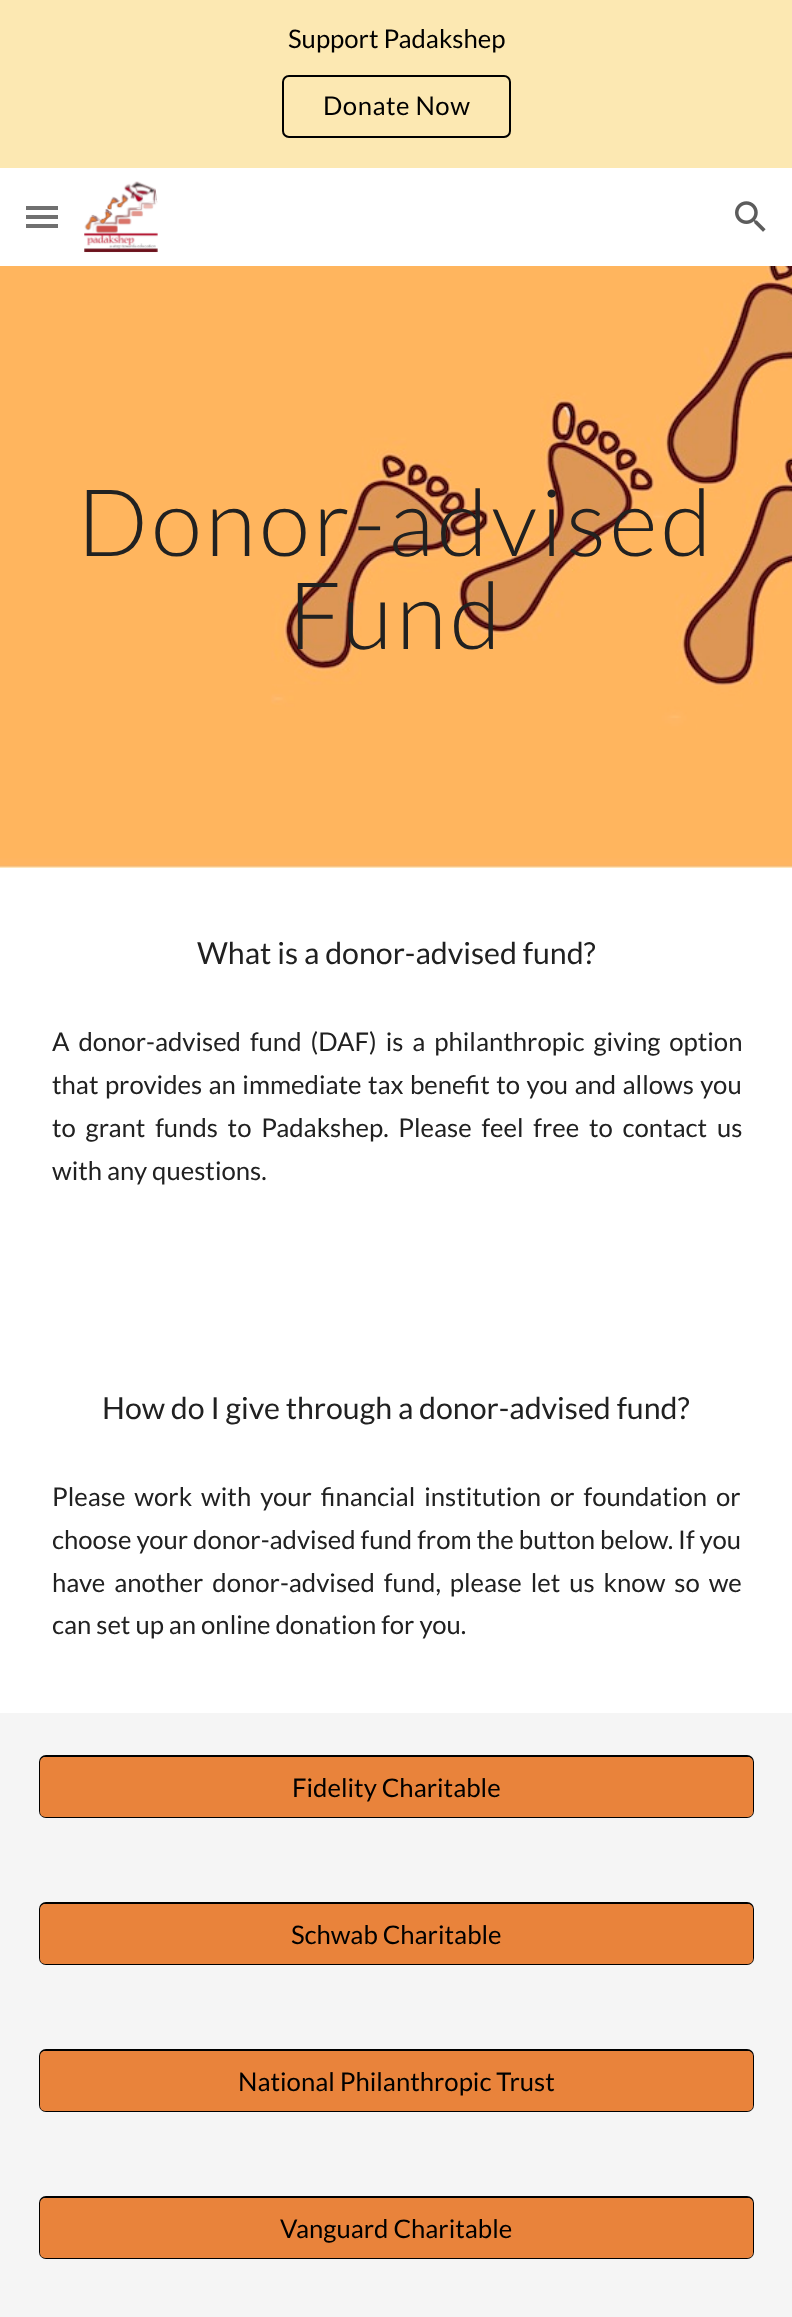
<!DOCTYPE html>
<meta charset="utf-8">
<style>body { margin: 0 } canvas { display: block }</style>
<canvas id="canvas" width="792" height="2317"></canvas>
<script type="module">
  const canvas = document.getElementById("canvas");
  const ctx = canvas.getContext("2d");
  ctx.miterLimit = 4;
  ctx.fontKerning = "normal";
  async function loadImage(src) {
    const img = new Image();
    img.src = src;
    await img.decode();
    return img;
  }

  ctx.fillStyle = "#ffffff";
  ctx.fillRect(0, 0, 792, 2317);
  ctx.fillStyle = "#fce8b2";
  ctx.fillRect(0, 0, 792, 168);
  ctx.font = "25.7px Lato";
  ctx.fillStyle = "#000000";
  ctx.fillText("Support Padakshep", 288, 48);
  ctx.beginPath();
  ctx.roundRect(283, 76, 227, 61, 6);
  ctx.strokeStyle = "#000000";
  ctx.lineWidth = 2;
  ctx.stroke();
  ctx.letterSpacing = "0.5px";
  ctx.fillText("Donate Now", 323, 115);
  ctx.fillStyle = "#707070";
  ctx.fillRect(26, 206, 32, 4);
  ctx.fillRect(26, 215, 32, 4);
  ctx.fillRect(26, 224, 32, 4);
  ctx.drawImage(await loadImage("img1.png"), 84, 181, 74, 72);
  ctx.drawImage(await loadImage("img2.png"), 735, 201, 31, 31);
  ctx.drawImage(await loadImage("img3.png"), 0, 266, 792, 602);
  ctx.letterSpacing = "3.5px";
  ctx.font = "300 93.25px Lato";
  ctx.fillStyle = "#212121";
  ctx.fillText("Donor-advised", 77, 556);
  ctx.fillText("Fund", 288, 649);
  ctx.letterSpacing = "0px";
  ctx.font = "30.3px Lato";
  ctx.fillText("What is a donor-advised fund?", 197, 964);
  ctx.wordSpacing = "4px";
  ctx.font = "25.7px Lato";
  ctx.fillText("A donor-advised fund (DAF) is a philanthropic giving option", 52, 1051);
  ctx.wordSpacing = "1.5px";
  ctx.fillText("that provides an immediate tax benefit to you and allows you", 52, 1094);
  ctx.wordSpacing = "4.75px";
  ctx.fillText("to grant funds to Padakshep. Please feel free to contact us", 52, 1137);
  ctx.wordSpacing = "0px";
  ctx.fillText("with any questions.", 52, 1180);
  ctx.font = "30.3px Lato";
  ctx.fillText("How do I give through a donor-advised fund?", 102, 1419);
  ctx.wordSpacing = "4px";
  ctx.font = "25.7px Lato";
  ctx.fillText("Please work with your financial institution or foundation or", 52, 1506);
  ctx.wordSpacing = "0px";
  ctx.fillText("choose your donor-advised fund from the button below. If you", 52, 1549);
  ctx.wordSpacing = "4px";
  ctx.fillText("have another donor-advised fund, please let us know so we", 52, 1592);
  ctx.wordSpacing = "0px";
  ctx.fillText("can set up an online donation for you.", 52, 1634);
  ctx.fillStyle = "#f5f5f5";
  ctx.fillRect(0, 1713, 792, 604);
  ctx.beginPath();
  ctx.roundRect(40, 1756, 713, 61, 6);
  ctx.stroke();
  ctx.fillStyle = "#e9833b";
  ctx.beginPath();
  ctx.roundRect(40, 1757, 713, 60, 5);
  ctx.fill();
  ctx.fillStyle = "#000000";
  ctx.fillText("Fidelity Charitable", 292, 1797);
  ctx.beginPath();
  ctx.roundRect(40, 1903, 713, 61, 6);
  ctx.stroke();
  ctx.fillStyle = "#e9833b";
  ctx.beginPath();
  ctx.roundRect(40, 1904, 713, 60, 5);
  ctx.fill();
  ctx.fillStyle = "#000000";
  ctx.fillText("Schwab Charitable", 291, 1944);
  ctx.beginPath();
  ctx.roundRect(40, 2050, 713, 61, 6);
  ctx.stroke();
  ctx.fillStyle = "#e9833b";
  ctx.beginPath();
  ctx.roundRect(40, 2051, 713, 60, 5);
  ctx.fill();
  ctx.fillStyle = "#000000";
  ctx.fillText("National Philanthropic Trust", 238, 2091);
  ctx.beginPath();
  ctx.roundRect(40, 2197, 713, 61, 6);
  ctx.stroke();
  ctx.fillStyle = "#e9833b";
  ctx.beginPath();
  ctx.roundRect(40, 2198, 713, 60, 5);
  ctx.fill();
  ctx.fillStyle = "#000000";
  ctx.fillText("Vanguard Charitable", 280, 2238);
</script>
